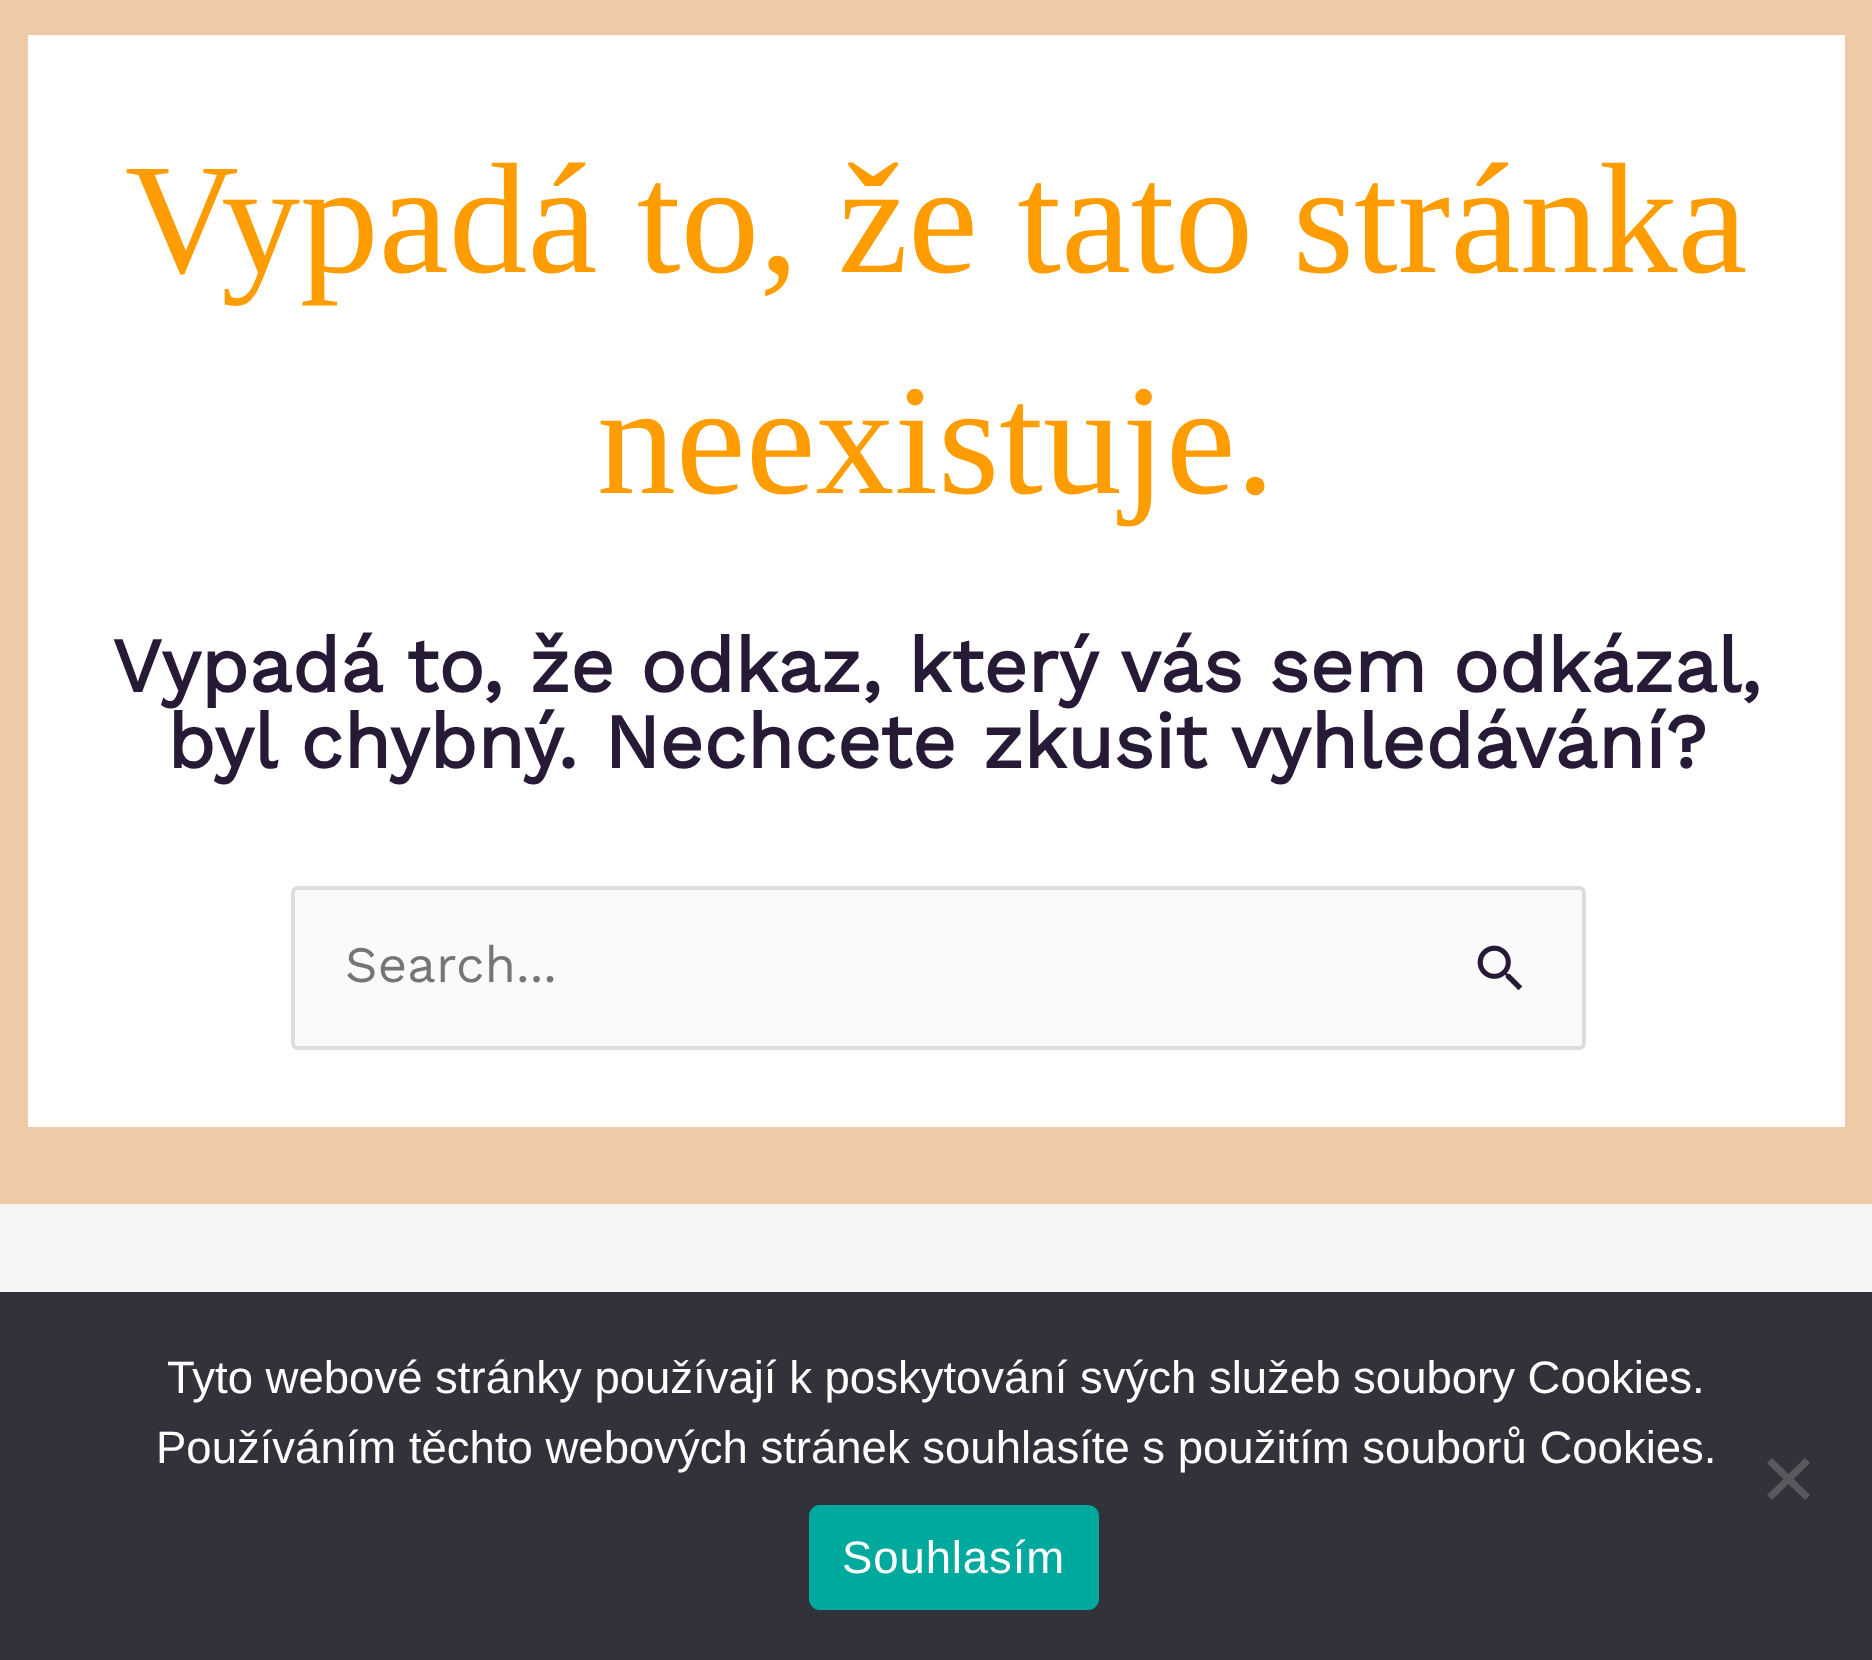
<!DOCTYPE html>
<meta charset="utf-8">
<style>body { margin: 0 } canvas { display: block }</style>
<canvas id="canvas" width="1872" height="1660"></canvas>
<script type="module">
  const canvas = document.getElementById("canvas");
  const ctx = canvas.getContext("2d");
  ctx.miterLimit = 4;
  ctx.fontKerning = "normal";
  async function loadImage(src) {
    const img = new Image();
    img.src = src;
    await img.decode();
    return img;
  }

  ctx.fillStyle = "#eecaa6";
  ctx.fillRect(0, 0, 1872, 1660);
  ctx.fillStyle = "#ffffff";
  ctx.fillRect(28, 35, 1817, 1092);
  ctx.font = "157.5px Liberation Serif";
  ctx.fillStyle = "#ff9c00";
  ctx.fillText("Vypadá to, že tato stránka", 125, 272);
  ctx.fillText("neexistuje.", 597, 493);
  ctx.font = "bold 76.6px Work Sans";
  ctx.fillStyle = "#261a36";
  ctx.fillText("Vypadá to, že odkaz, který vás sem odkázal,", 112, 692);
  ctx.fillText("byl chybný. Nechcete zkusit vyhledávání?", 167, 768);
  ctx.fillStyle = "#fafafa";
  ctx.beginPath();
  ctx.roundRect(293, 888, 1291, 160, 5);
  ctx.fill();
  ctx.strokeStyle = "#dddddd";
  ctx.lineWidth = 4;
  ctx.stroke();
  ctx.font = "51px Work Sans";
  ctx.fillStyle = "#757575";
  ctx.fillText("Search...", 345, 982);
  ctx.drawImage(await loadImage("img1.png"), 1477, 945, 46, 46);
  ctx.fillStyle = "#f5f5f6";
  ctx.fillRect(0, 1204, 1872, 88);
  ctx.fillStyle = "#32323a";
  ctx.fillRect(0, 1292, 1872, 368);
  ctx.font = "45.5px Liberation Sans";
  ctx.fillStyle = "#ffffff";
  ctx.fillText("Tyto webové stránky používají k poskytování svých služeb soubory Cookies.", 167, 1393);
  ctx.fillText("Používáním těchto webových stránek souhlasíte s použitím souborů Cookies.", 156, 1463);
  ctx.fillStyle = "#59595d";
  ctx.beginPath();
  ctx.moveTo(1805, 1458);
  ctx.lineTo(1810, 1463);
  ctx.lineTo(1772, 1500);
  ctx.lineTo(1767, 1495);
  ctx.closePath();
  ctx.fill();
  ctx.beginPath();
  ctx.moveTo(1767, 1463);
  ctx.lineTo(1772, 1458);
  ctx.lineTo(1810, 1495);
  ctx.lineTo(1805, 1500);
  ctx.closePath();
  ctx.fill();
  ctx.fillStyle = "#00a99d";
  ctx.beginPath();
  ctx.roundRect(809, 1505, 290, 105, 11);
  ctx.fill();
  ctx.letterSpacing = "0.9px";
  ctx.fillStyle = "#ffffff";
  ctx.fillText("Souhlasím", 842, 1573);
</script>
